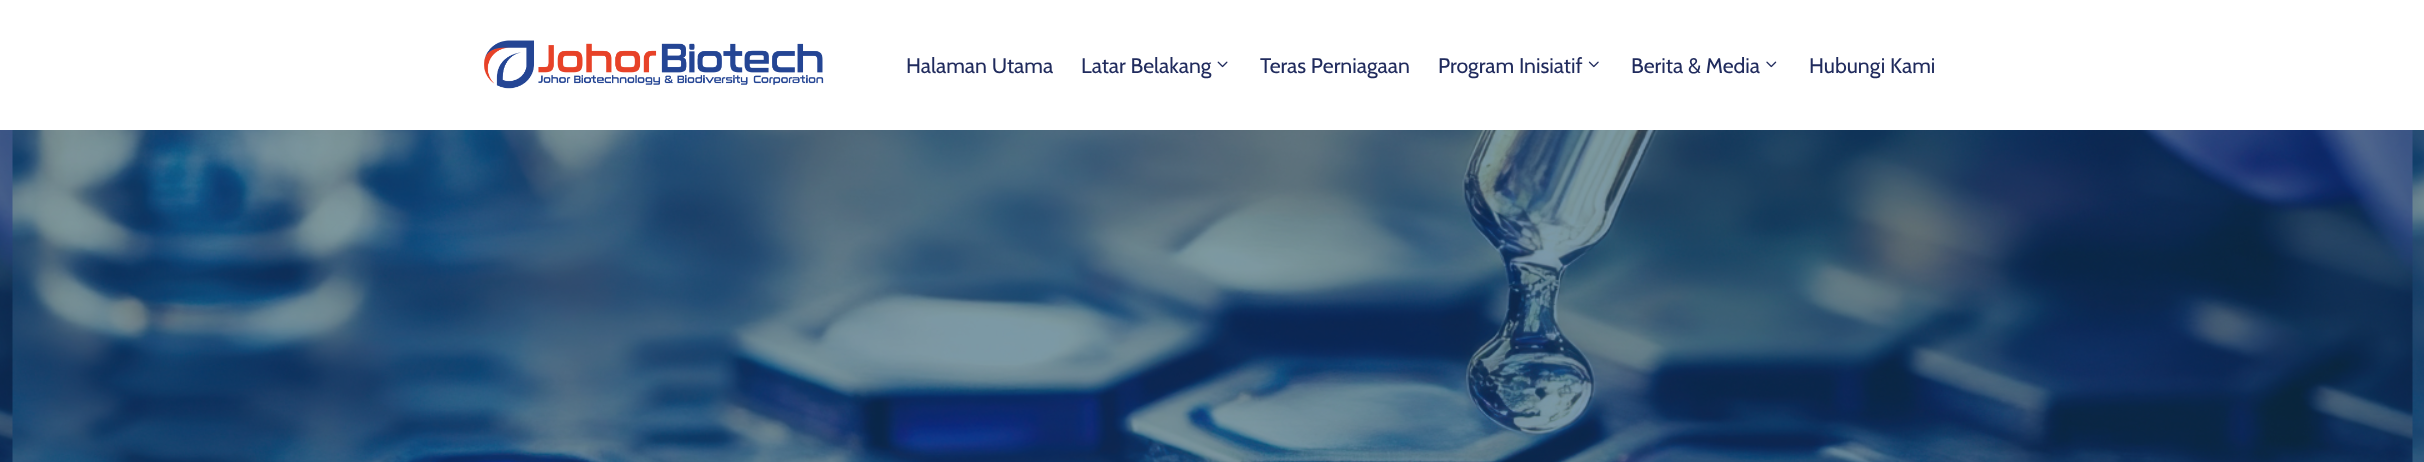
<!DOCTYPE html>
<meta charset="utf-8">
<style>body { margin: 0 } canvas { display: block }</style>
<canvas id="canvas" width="2424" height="462"></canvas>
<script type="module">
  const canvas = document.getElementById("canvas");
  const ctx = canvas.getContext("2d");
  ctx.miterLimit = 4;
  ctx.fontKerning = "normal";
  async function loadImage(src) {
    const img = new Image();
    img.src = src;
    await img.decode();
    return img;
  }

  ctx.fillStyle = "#ffffff";
  ctx.fillRect(0, 0, 2424, 462);
  ctx.drawImage(await loadImage("img1.png"), 484, 40, 340, 49);
  ctx.font = "21.25px Cabin";
  ctx.fillStyle = "#202b5d";
  ctx.fillText("Halaman Utama", 906, 73);
  ctx.fillText("Latar Belakang", 1081, 73);
  ctx.drawImage(await loadImage("img2.png"), 1217, 61, 11, 7);
  ctx.fillText("Teras Perniagaan", 1260, 73);
  ctx.fillText("Program Inisiatif", 1438, 73);
  ctx.drawImage(await loadImage("img3.png"), 1588, 61, 11, 7);
  ctx.fillText("Berita & Media", 1631, 73);
  ctx.drawImage(await loadImage("img4.png"), 1766, 61, 11, 7);
  ctx.fillText("Hubungi Kami", 1809, 73);
  ctx.drawImage(await loadImage("img5.png"), 0, 130, 2424, 332);
</script>
